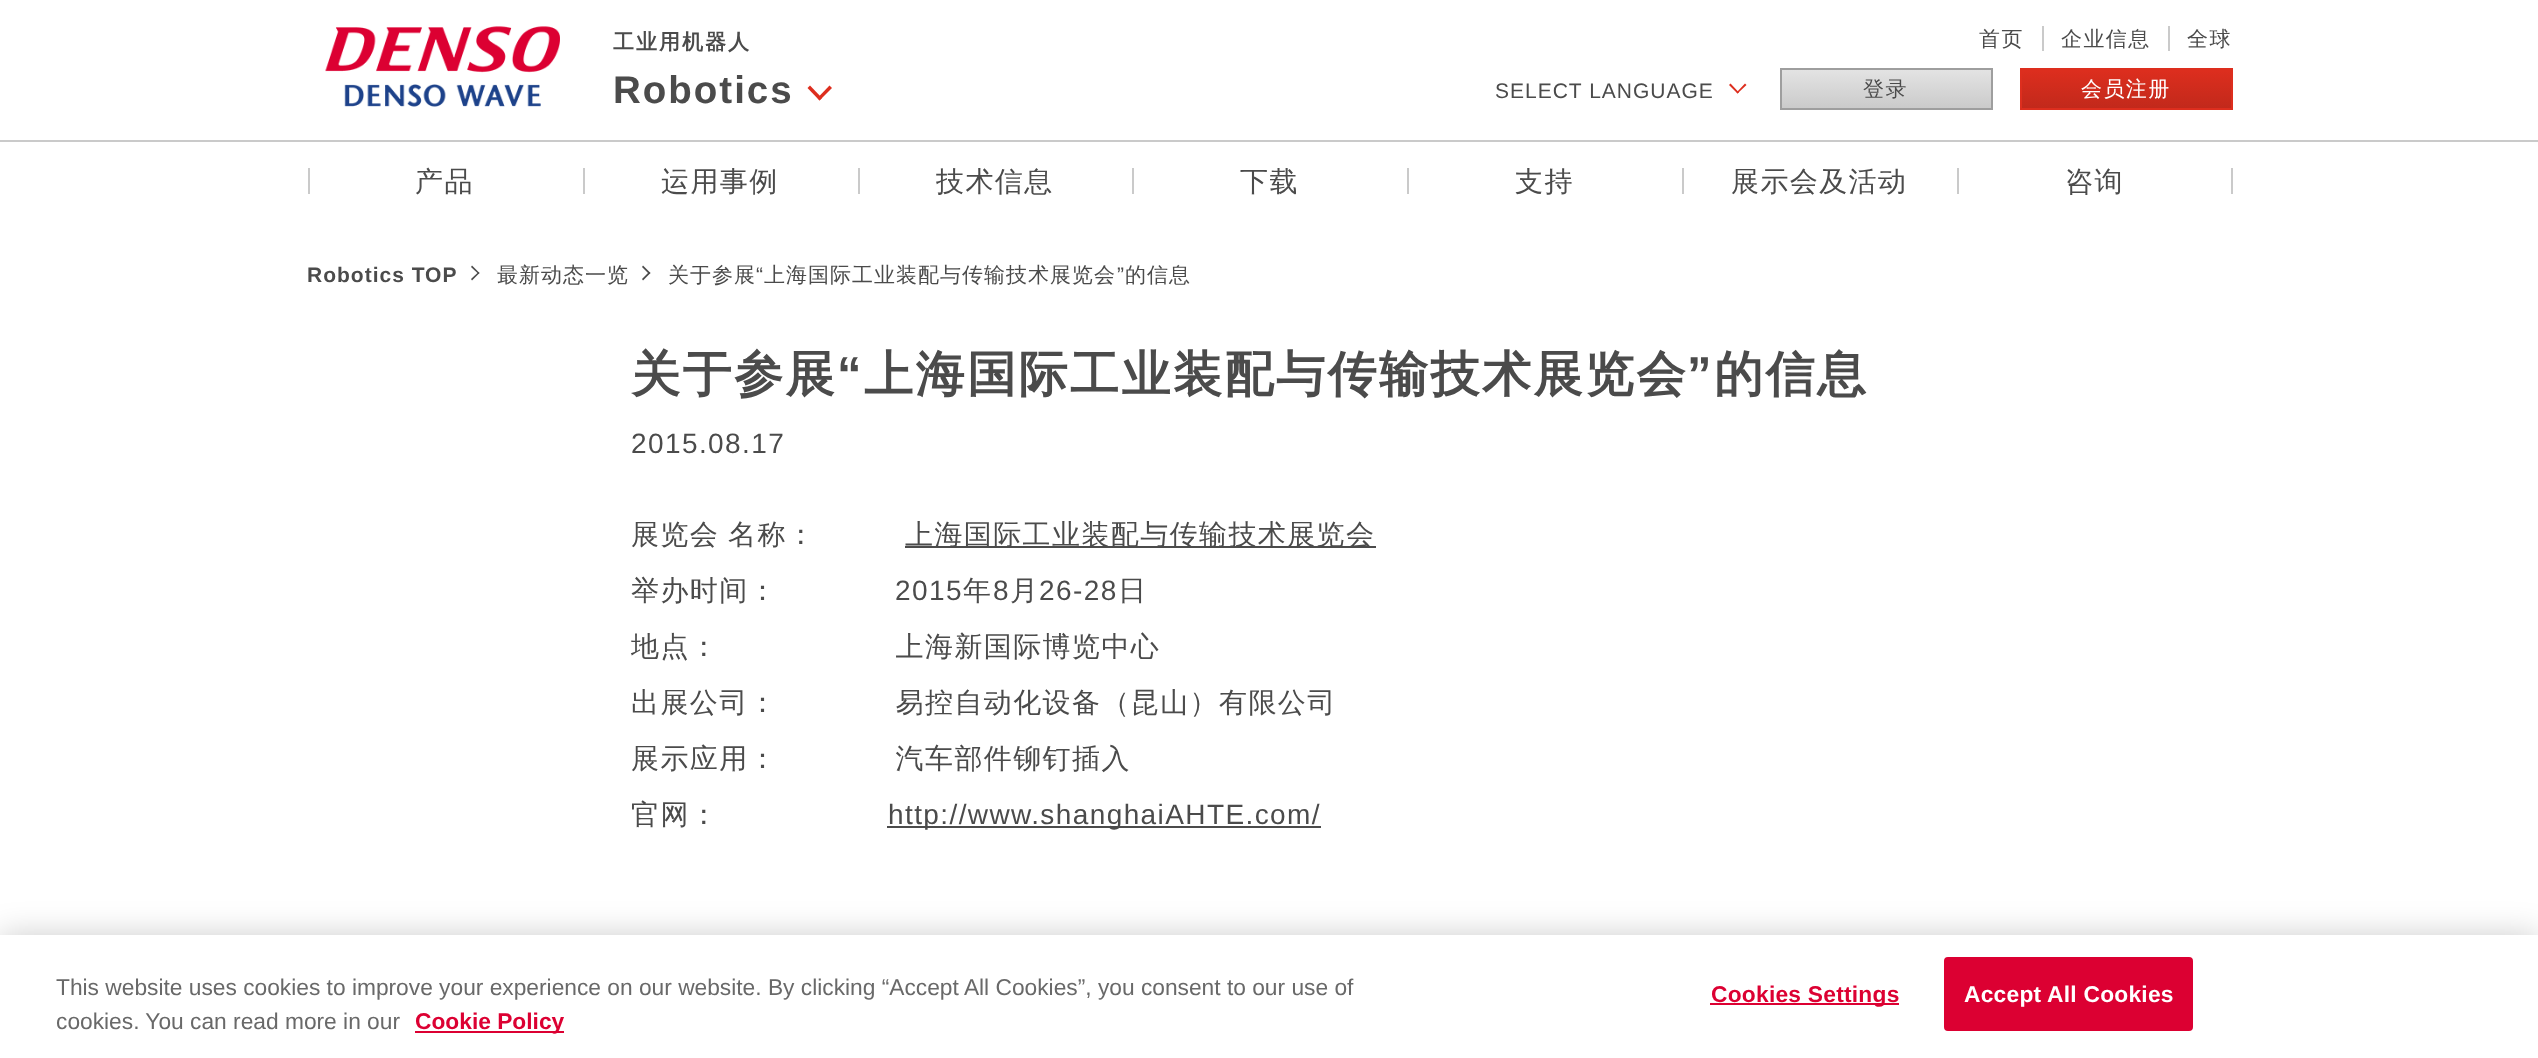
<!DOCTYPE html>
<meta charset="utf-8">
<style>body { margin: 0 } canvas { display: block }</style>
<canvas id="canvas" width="2538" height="1058"></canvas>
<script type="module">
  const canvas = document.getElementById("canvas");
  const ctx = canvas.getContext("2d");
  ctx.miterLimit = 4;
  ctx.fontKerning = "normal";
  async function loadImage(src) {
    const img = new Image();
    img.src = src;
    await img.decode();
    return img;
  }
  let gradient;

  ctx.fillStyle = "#ffffff";
  ctx.fillRect(0, 0, 2538, 1058);
  ctx.letterSpacing = "2px";
  ctx.font = "bold 21px WenQuanYi Zen Hei";
  ctx.fillStyle = "#4b4b4b";
  ctx.fillText("工业用机器人", 613, 49);
  ctx.font = "bold 38.5px Liberation Sans";
  ctx.fillText("Robotics", 613, 103);
  ctx.fillStyle = "#dd2e1e";
  ctx.beginPath();
  ctx.moveTo(832, 88);
  ctx.lineTo(819.5, 100.5);
  ctx.lineTo(817.5, 98);
  ctx.lineTo(829.5, 85.5);
  ctx.closePath();
  ctx.fill();
  ctx.beginPath();
  ctx.moveTo(822, 98);
  ctx.lineTo(819.5, 100.5);
  ctx.lineTo(807.5, 88);
  ctx.lineTo(810, 85.5);
  ctx.closePath();
  ctx.fill();
  ctx.drawImage(await loadImage("img1.png"), 325, 26, 235, 81);
  ctx.letterSpacing = "1.4px";
  ctx.font = "500 21px WenQuanYi Zen Hei";
  ctx.fillStyle = "#4b4b4b";
  ctx.fillText("首页", 1979, 46);
  ctx.fillStyle = "#cacaca";
  ctx.fillRect(2042, 26, 2, 25);
  ctx.fillStyle = "#4b4b4b";
  ctx.fillText("企业信息", 2061, 46);
  ctx.fillStyle = "#cacaca";
  ctx.fillRect(2168, 26, 2, 25);
  ctx.fillStyle = "#4b4b4b";
  ctx.fillText("全球", 2187, 46);
  ctx.letterSpacing = "1px";
  ctx.font = "21px Liberation Sans";
  ctx.fillText("SELECT LANGUAGE", 1495, 98);
  ctx.fillStyle = "#dd2e1e";
  ctx.beginPath();
  ctx.moveTo(1746.5, 85);
  ctx.lineTo(1737.5, 93.5);
  ctx.lineTo(1736.5, 92.5);
  ctx.lineTo(1745, 83.5);
  ctx.closePath();
  ctx.fill();
  ctx.beginPath();
  ctx.moveTo(1739, 92.5);
  ctx.lineTo(1737.5, 93.5);
  ctx.lineTo(1729, 85);
  ctx.lineTo(1730.5, 83.5);
  ctx.closePath();
  ctx.fill();
  gradient = ctx.createLinearGradient(1887, 70, 1887, 109);
  gradient.addColorStop(0, "#e3e3e3");
  gradient.addColorStop(1, "#cacaca");
  ctx.fillStyle = gradient;
  ctx.fillRect(1782, 70, 209, 38);
  ctx.strokeStyle = "#9e9e9e";
  ctx.lineWidth = 2;
  ctx.strokeRect(1781, 69, 211, 40);
  ctx.letterSpacing = "1.4px";
  ctx.font = "500 21px WenQuanYi Zen Hei";
  ctx.fillStyle = "#4b4b4b";
  ctx.fillText("登录", 1863, 96);
  gradient = ctx.createLinearGradient(2126, 70, 2126, 109);
  gradient.addColorStop(0, "#dd2e1e");
  gradient.addColorStop(1, "#c1291b");
  ctx.fillStyle = gradient;
  ctx.fillRect(2022, 70, 209, 38);
  ctx.strokeStyle = "#dd2e1e";
  ctx.strokeRect(2021, 69, 211, 40);
  ctx.fillStyle = "#ffffff";
  ctx.fillText("会员注册", 2081, 96);
  ctx.fillStyle = "#cacaca";
  ctx.fillRect(0, 140, 2538, 2);
  ctx.fillRect(308, 168, 2, 26);
  ctx.font = "500 28px WenQuanYi Zen Hei";
  ctx.fillStyle = "#4b4b4b";
  ctx.fillText("产品", 415, 191);
  ctx.fillStyle = "#cacaca";
  ctx.fillRect(583, 168, 2, 26);
  ctx.fillStyle = "#4b4b4b";
  ctx.fillText("运用事例", 661, 191);
  ctx.fillStyle = "#cacaca";
  ctx.fillRect(858, 168, 2, 26);
  ctx.fillStyle = "#4b4b4b";
  ctx.fillText("技术信息", 936, 191);
  ctx.fillStyle = "#cacaca";
  ctx.fillRect(1132, 168, 2, 26);
  ctx.fillStyle = "#4b4b4b";
  ctx.fillText("下载", 1240, 191);
  ctx.fillStyle = "#cacaca";
  ctx.fillRect(1407, 168, 2, 26);
  ctx.fillStyle = "#4b4b4b";
  ctx.fillText("支持", 1515, 191);
  ctx.fillStyle = "#cacaca";
  ctx.fillRect(1682, 168, 2, 26);
  ctx.fillStyle = "#4b4b4b";
  ctx.fillText("展示会及活动", 1731, 191);
  ctx.fillStyle = "#cacaca";
  ctx.fillRect(1957, 168, 2, 26);
  ctx.fillStyle = "#4b4b4b";
  ctx.fillText("咨询", 2065, 191);
  ctx.fillStyle = "#cacaca";
  ctx.fillRect(2231, 168, 2, 26);
  ctx.letterSpacing = "1px";
  ctx.font = "bold 21px Liberation Sans";
  ctx.fillStyle = "#4b4b4b";
  ctx.fillText("Robotics TOP", 307, 282);
  ctx.beginPath();
  ctx.moveTo(472, 265.5);
  ctx.lineTo(479.5, 273);
  ctx.lineTo(478.5, 274);
  ctx.lineTo(471, 267);
  ctx.closePath();
  ctx.fill();
  ctx.beginPath();
  ctx.moveTo(478.5, 272);
  ctx.lineTo(479.5, 273);
  ctx.lineTo(472, 280.5);
  ctx.lineTo(471, 279);
  ctx.closePath();
  ctx.fill();
  ctx.font = "500 21px WenQuanYi Zen Hei";
  ctx.fillText("最新动态一览", 497, 282);
  ctx.beginPath();
  ctx.moveTo(643, 265.5);
  ctx.lineTo(650.5, 273);
  ctx.lineTo(649, 274);
  ctx.lineTo(642, 267);
  ctx.closePath();
  ctx.fill();
  ctx.beginPath();
  ctx.moveTo(649, 272);
  ctx.lineTo(650.5, 273);
  ctx.lineTo(643, 280.5);
  ctx.lineTo(642, 279);
  ctx.closePath();
  ctx.fill();
  ctx.fillText("关于参展", 668, 282);
  ctx.font = "21px Liberation Sans";
  ctx.fillText("“", 756, 282);
  ctx.font = "500 21px WenQuanYi Zen Hei";
  ctx.fillText("上海国际工业装配与传输技术展览会", 764, 282);
  ctx.font = "21px Liberation Sans";
  ctx.fillText("”", 1117, 282);
  ctx.font = "500 21px WenQuanYi Zen Hei";
  ctx.fillText("的信息", 1125, 282);
  ctx.letterSpacing = "2.5px";
  ctx.font = "bold 49px WenQuanYi Zen Hei";
  ctx.fillText("关于参展", 631, 391);
  ctx.font = "bold 49px Liberation Sans";
  ctx.fillText("“", 837, 391);
  ctx.font = "bold 49px WenQuanYi Zen Hei";
  ctx.fillText("上海国际工业装配与传输技术展览会", 864, 391);
  ctx.font = "bold 49px Liberation Sans";
  ctx.fillText("”", 1687, 391);
  ctx.font = "bold 49px WenQuanYi Zen Hei";
  ctx.fillText("的信息", 1714, 391);
  ctx.letterSpacing = "1.4px";
  ctx.font = "28px Liberation Sans";
  ctx.fillText("2015.08.17", 631, 453);
  ctx.wordSpacing = "-1px";
  ctx.font = "500 28px WenQuanYi Zen Hei";
  ctx.fillText("展览会 名称：", 631, 544);
  ctx.fillRect(905, 546, 471, 2);
  ctx.wordSpacing = "0px";
  ctx.fillText("上海国际工业装配与传输技术展览会", 905, 544);
  ctx.fillText("举办时间：", 631, 600);
  ctx.font = "28px Liberation Sans";
  ctx.fillText("2015", 895, 600);
  ctx.font = "500 28px WenQuanYi Zen Hei";
  ctx.fillText("年", 963, 600);
  ctx.font = "28px Liberation Sans";
  ctx.fillText("8", 993, 600);
  ctx.font = "500 28px WenQuanYi Zen Hei";
  ctx.fillText("月", 1010, 600);
  ctx.font = "28px Liberation Sans";
  ctx.fillText("26-28", 1039, 600);
  ctx.font = "500 28px WenQuanYi Zen Hei";
  ctx.fillText("日", 1118, 600);
  ctx.fillText("地点：　　　　　　上海新国际博览中心", 631, 656);
  ctx.fillText("出展公司：　　　　易控自动化设备（昆山）有限公司", 631, 712);
  ctx.fillText("展示应用：　　　　汽车部件铆钉插入", 631, 768);
  ctx.fillText("官网：", 631, 824);
  ctx.fillRect(887, 826, 434, 2);
  ctx.font = "28px Liberation Sans";
  ctx.fillText("http://www.shanghaiAHTE.com/", 888, 824);
  ctx.fillStyle = "rgba(0, 0, 0, 0.2)";
  ctx.filter = "blur(16px)";
  ctx.beginPath();
  ctx.rect(0, 935, 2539, 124);
  ctx.fill();
  ctx.filter = "none";
  ctx.fillStyle = "#ffffff";
  ctx.fillRect(0, 935, 2538, 123);
  ctx.letterSpacing = "0px";
  ctx.font = "22.75px Liberation Sans";
  ctx.fillStyle = "#696969";
  ctx.fillText("This website uses cookies to improve your experience on our website. By clicking “Accept All Cookies”, you consent to our use of", 56, 995);
  ctx.fillText("cookies. You can read more in our", 56, 1029);
  ctx.fillStyle = "#dc0032";
  ctx.fillRect(415, 1031, 149, 2);
  ctx.font = "bold 22.75px Liberation Sans";
  ctx.fillText("Cookie Policy", 415, 1029);
  ctx.fillRect(1710, 1003, 189, 2);
  ctx.letterSpacing = "0.25px";
  ctx.fillText("Cookies Settings", 1711, 1002);
  ctx.beginPath();
  ctx.roundRect(1945, 958, 247, 72, 3);
  ctx.fill();
  ctx.strokeStyle = "#dc0032";
  ctx.stroke();
  ctx.fillStyle = "#ffffff";
  ctx.fillText("Accept All Cookies", 1964, 1002);
</script>
